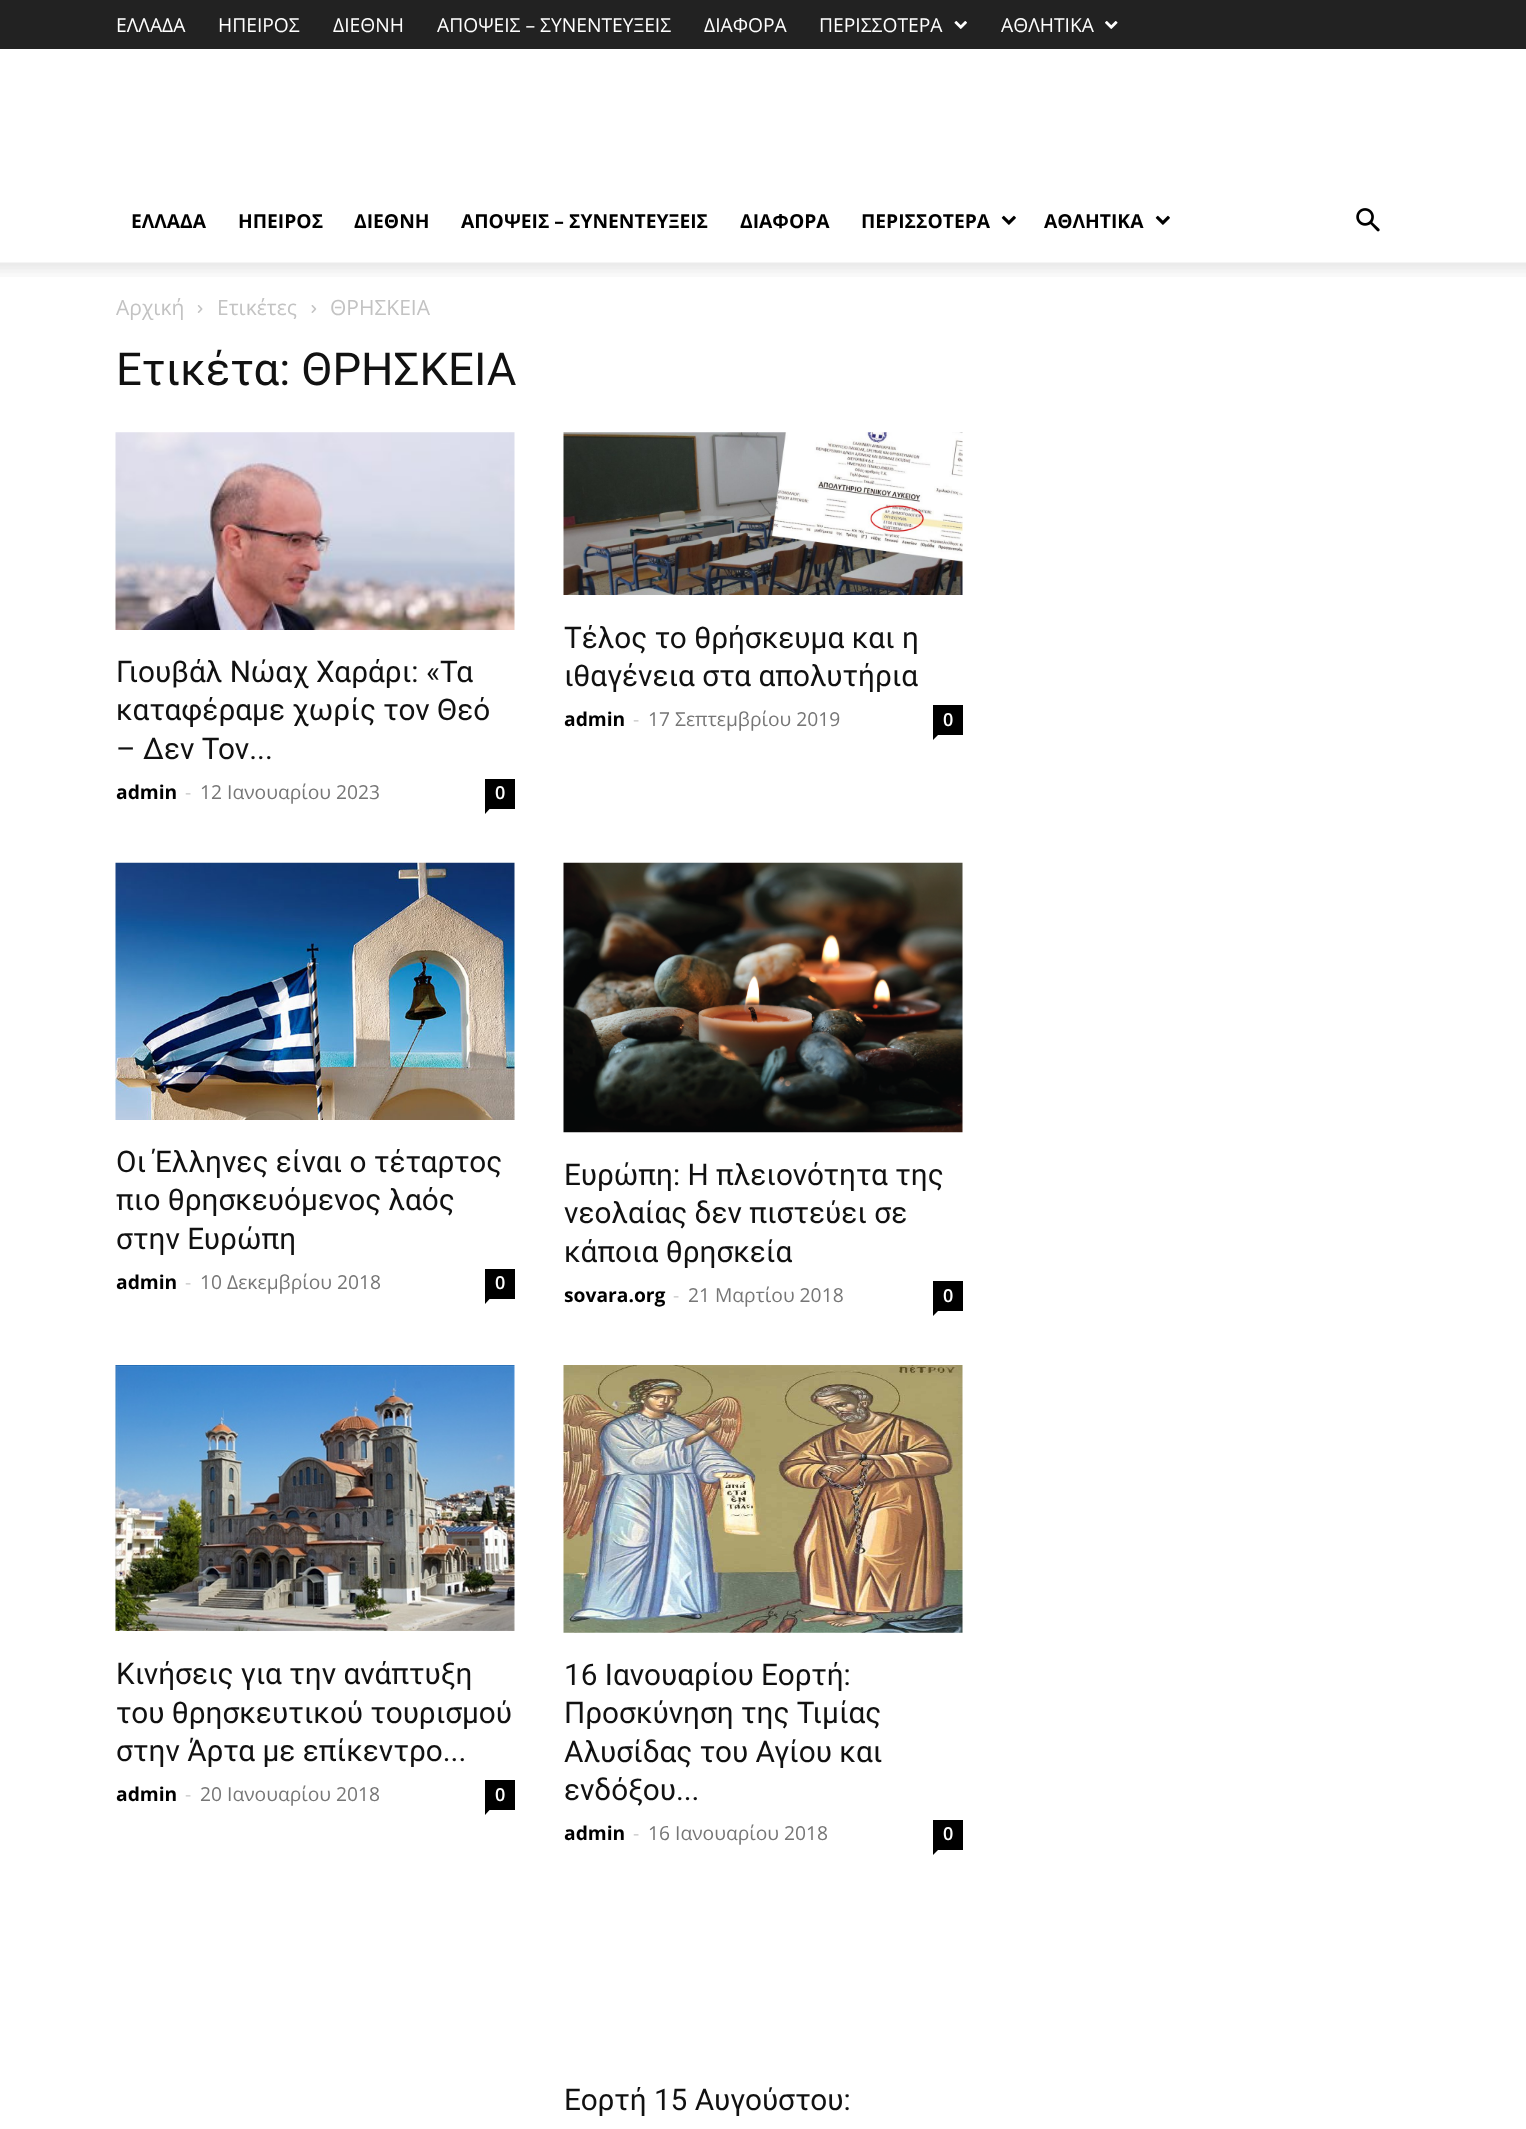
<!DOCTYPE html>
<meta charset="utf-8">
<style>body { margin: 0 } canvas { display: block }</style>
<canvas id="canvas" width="1526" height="2129"></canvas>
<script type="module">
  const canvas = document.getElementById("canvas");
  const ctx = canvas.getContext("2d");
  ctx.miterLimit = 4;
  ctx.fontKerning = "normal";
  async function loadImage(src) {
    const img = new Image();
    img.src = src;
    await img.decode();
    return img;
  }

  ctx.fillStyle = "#ffffff";
  ctx.fillRect(0, 0, 1526, 2129);
  ctx.fillStyle = "#222222";
  ctx.fillRect(0, 0, 1526, 49);
  ctx.font = "19.25px Open Sans";
  ctx.fillStyle = "#ffffff";
  ctx.fillText("ΕΛΛΑΔΑ", 116, 32);
  ctx.fillText("ΗΠΕΙΡΟΣ", 218, 32);
  ctx.fillText("ΔΙΕΘΝΗ", 333, 32);
  ctx.fillText("ΑΠΟΨΕΙΣ – ΣΥΝΕΝΤΕΥΞΕΙΣ", 437, 32);
  ctx.fillText("ΔΙΑΦΟΡΑ", 704, 32);
  ctx.fillText("ΠΕΡΙΣΣΟΤΕΡΑ", 819, 32);
  ctx.drawImage(await loadImage("img1.png"), 954, 21, 13, 8);
  ctx.fillText("ΑΘΛΗΤΙΚΑ", 1001, 32);
  ctx.drawImage(await loadImage("img2.png"), 1105, 21, 13, 8);
  ctx.font = "bold 19.25px Open Sans";
  ctx.fillStyle = "#000000";
  ctx.fillText("ΕΛΛΑΔΑ", 131, 228);
  ctx.fillText("ΗΠΕΙΡΟΣ", 238, 228);
  ctx.fillText("ΔΙΕΘΝΗ", 354, 228);
  ctx.fillText("ΑΠΟΨΕΙΣ – ΣΥΝΕΝΤΕΥΞΕΙΣ", 461, 228);
  ctx.fillText("ΔΙΑΦΟΡΑ", 740, 228);
  ctx.fillText("ΠΕΡΙΣΣΟΤΕΡΑ", 861, 228);
  ctx.drawImage(await loadImage("img3.png"), 1001, 215, 15, 10);
  ctx.fillText("ΑΘΛΗΤΙΚΑ", 1044, 228);
  ctx.drawImage(await loadImage("img3.png"), 1155, 215, 15, 10);
  ctx.drawImage(await loadImage("img4.png"), 1356, 208, 24, 24);
  ctx.drawImage(await loadImage("img5.png"), 0, 262, 1526, 15);
  ctx.font = "21px Open Sans";
  ctx.fillStyle = "#c3c3c3";
  ctx.fillText("Αρχική", 116, 315);
  ctx.drawImage(await loadImage("img6.png"), 197, 305, 6, 8);
  ctx.fillText("Ετικέτες", 217, 315);
  ctx.drawImage(await loadImage("img7.png"), 311, 305, 6, 8);
  ctx.fillText("ΘΡΗΣΚΕΙΑ", 330, 315);
  ctx.font = "45.5px Roboto";
  ctx.fillStyle = "#111111";
  ctx.fillText("Ετικέτα: ΘΡΗΣΚΕΙΑ", 116, 385);
  ctx.drawImage(await loadImage("img8.png"), 115, 432, 400, 198);
  ctx.font = "29.75px Roboto";
  ctx.fillText("Γιουβάλ Νώαχ Χαράρι: «Τα", 116, 682);
  ctx.fillText("καταφέραμε χωρίς τον Θεό", 116, 720);
  ctx.fillText("– Δεν Τον...", 116, 759);
  ctx.font = "bold 19.25px Open Sans";
  ctx.fillStyle = "#000000";
  ctx.fillText("admin", 116, 799);
  ctx.font = "19.25px Open Sans";
  ctx.fillStyle = "#cccccc";
  ctx.fillText("-", 185, 799);
  ctx.fillStyle = "#767676";
  ctx.fillText("12 Ιανουαρίου 2023", 200, 799);
  ctx.fillStyle = "#000000";
  ctx.fillRect(485, 779, 30, 30);
  ctx.font = "600 18px Open Sans";
  ctx.fillStyle = "#ffffff";
  ctx.fillText("0", 495, 799);
  ctx.fillStyle = "#000000";
  ctx.beginPath();
  ctx.moveTo(485, 808.5);
  ctx.lineTo(490, 808.5);
  ctx.lineTo(485, 814);
  ctx.closePath();
  ctx.fill();
  ctx.drawImage(await loadImage("img9.png"), 563, 432, 400, 163);
  ctx.font = "29.75px Roboto";
  ctx.fillStyle = "#111111";
  ctx.fillText("Τέλος το θρήσκευμα και η", 564, 648);
  ctx.fillText("ιθαγένεια στα απολυτήρια", 564, 686);
  ctx.font = "bold 19.25px Open Sans";
  ctx.fillStyle = "#000000";
  ctx.fillText("admin", 564, 726);
  ctx.font = "19.25px Open Sans";
  ctx.fillStyle = "#cccccc";
  ctx.fillText("-", 633, 726);
  ctx.fillStyle = "#767676";
  ctx.fillText("17 Σεπτεμβρίου 2019", 648, 726);
  ctx.fillStyle = "#000000";
  ctx.fillRect(933, 705, 30, 30);
  ctx.font = "600 18px Open Sans";
  ctx.fillStyle = "#ffffff";
  ctx.fillText("0", 943, 726);
  ctx.fillStyle = "#000000";
  ctx.beginPath();
  ctx.moveTo(933, 735);
  ctx.lineTo(938, 735);
  ctx.lineTo(933, 740);
  ctx.closePath();
  ctx.fill();
  ctx.drawImage(await loadImage("img10.png"), 115, 862, 400, 258);
  ctx.font = "29.75px Roboto";
  ctx.fillStyle = "#111111";
  ctx.fillText("Οι Έλληνες είναι ο τέταρτος", 116, 1172);
  ctx.fillText("πιο θρησκευόμενος λαός", 116, 1210);
  ctx.fillText("στην Ευρώπη", 116, 1249);
  ctx.font = "bold 19.25px Open Sans";
  ctx.fillStyle = "#000000";
  ctx.fillText("admin", 116, 1289);
  ctx.font = "19.25px Open Sans";
  ctx.fillStyle = "#cccccc";
  ctx.fillText("-", 185, 1289);
  ctx.fillStyle = "#767676";
  ctx.fillText("10 Δεκεμβρίου 2018", 200, 1289);
  ctx.fillStyle = "#000000";
  ctx.fillRect(485, 1269, 30, 30);
  ctx.font = "600 18px Open Sans";
  ctx.fillStyle = "#ffffff";
  ctx.fillText("0", 495, 1289);
  ctx.fillStyle = "#000000";
  ctx.beginPath();
  ctx.moveTo(485, 1298.5);
  ctx.lineTo(490, 1298.5);
  ctx.lineTo(485, 1304);
  ctx.closePath();
  ctx.fill();
  ctx.drawImage(await loadImage("img11.png"), 563, 862, 400, 271);
  ctx.font = "29.75px Roboto";
  ctx.fillStyle = "#111111";
  ctx.fillText("Ευρώπη: Η πλειονότητα της", 564, 1185);
  ctx.fillText("νεολαίας δεν πιστεύει σε", 564, 1223);
  ctx.fillText("κάποια θρησκεία", 564, 1262);
  ctx.font = "bold 19.25px Open Sans";
  ctx.fillStyle = "#000000";
  ctx.fillText("sovara.org", 564, 1302);
  ctx.font = "19.25px Open Sans";
  ctx.fillStyle = "#cccccc";
  ctx.fillText("-", 673, 1302);
  ctx.fillStyle = "#767676";
  ctx.fillText("21 Μαρτίου 2018", 688, 1302);
  ctx.fillStyle = "#000000";
  ctx.fillRect(933, 1281, 30, 30);
  ctx.font = "600 18px Open Sans";
  ctx.fillStyle = "#ffffff";
  ctx.fillText("0", 943, 1302);
  ctx.fillStyle = "#000000";
  ctx.beginPath();
  ctx.moveTo(933, 1311);
  ctx.lineTo(938, 1311);
  ctx.lineTo(933, 1316);
  ctx.closePath();
  ctx.fill();
  ctx.drawImage(await loadImage("img12.png"), 115, 1365, 400, 266);
  ctx.font = "29.75px Roboto";
  ctx.fillStyle = "#111111";
  ctx.fillText("Κινήσεις για την ανάπτυξη", 116, 1684);
  ctx.fillText("του θρησκευτικού τουρισμού", 116, 1723);
  ctx.fillText("στην Άρτα με επίκεντρο...", 116, 1761);
  ctx.font = "bold 19.25px Open Sans";
  ctx.fillStyle = "#000000";
  ctx.fillText("admin", 116, 1801);
  ctx.font = "19.25px Open Sans";
  ctx.fillStyle = "#cccccc";
  ctx.fillText("-", 185, 1801);
  ctx.fillStyle = "#767676";
  ctx.fillText("20 Ιανουαρίου 2018", 200, 1801);
  ctx.fillStyle = "#000000";
  ctx.fillRect(485, 1780, 30, 30);
  ctx.font = "600 18px Open Sans";
  ctx.fillStyle = "#ffffff";
  ctx.fillText("0", 495, 1801);
  ctx.fillStyle = "#000000";
  ctx.beginPath();
  ctx.moveTo(485, 1809.5);
  ctx.lineTo(490, 1809.5);
  ctx.lineTo(485, 1815);
  ctx.closePath();
  ctx.fill();
  ctx.drawImage(await loadImage("img13.png"), 563, 1365, 400, 268);
  ctx.font = "29.75px Roboto";
  ctx.fillStyle = "#111111";
  ctx.fillText("16 Ιανουαρίου Εορτή:", 564, 1685);
  ctx.fillText("Προσκύνηση της Τιμίας", 564, 1723);
  ctx.fillText("Αλυσίδας του Αγίου και", 564, 1762);
  ctx.fillText("ενδόξου...", 564, 1800);
  ctx.font = "bold 19.25px Open Sans";
  ctx.fillStyle = "#000000";
  ctx.fillText("admin", 564, 1840);
  ctx.font = "19.25px Open Sans";
  ctx.fillStyle = "#cccccc";
  ctx.fillText("-", 633, 1840);
  ctx.fillStyle = "#767676";
  ctx.fillText("16 Ιανουαρίου 2018", 648, 1840);
  ctx.fillStyle = "#000000";
  ctx.fillRect(933, 1820, 30, 30);
  ctx.font = "600 18px Open Sans";
  ctx.fillStyle = "#ffffff";
  ctx.fillText("0", 943, 1840);
  ctx.fillStyle = "#000000";
  ctx.beginPath();
  ctx.moveTo(933, 1850);
  ctx.lineTo(938, 1850);
  ctx.lineTo(933, 1855);
  ctx.closePath();
  ctx.fill();
  ctx.font = "29.75px Roboto";
  ctx.fillStyle = "#111111";
  ctx.fillText("Εορτή 15 Αυγούστου:", 564, 2110);
</script>
